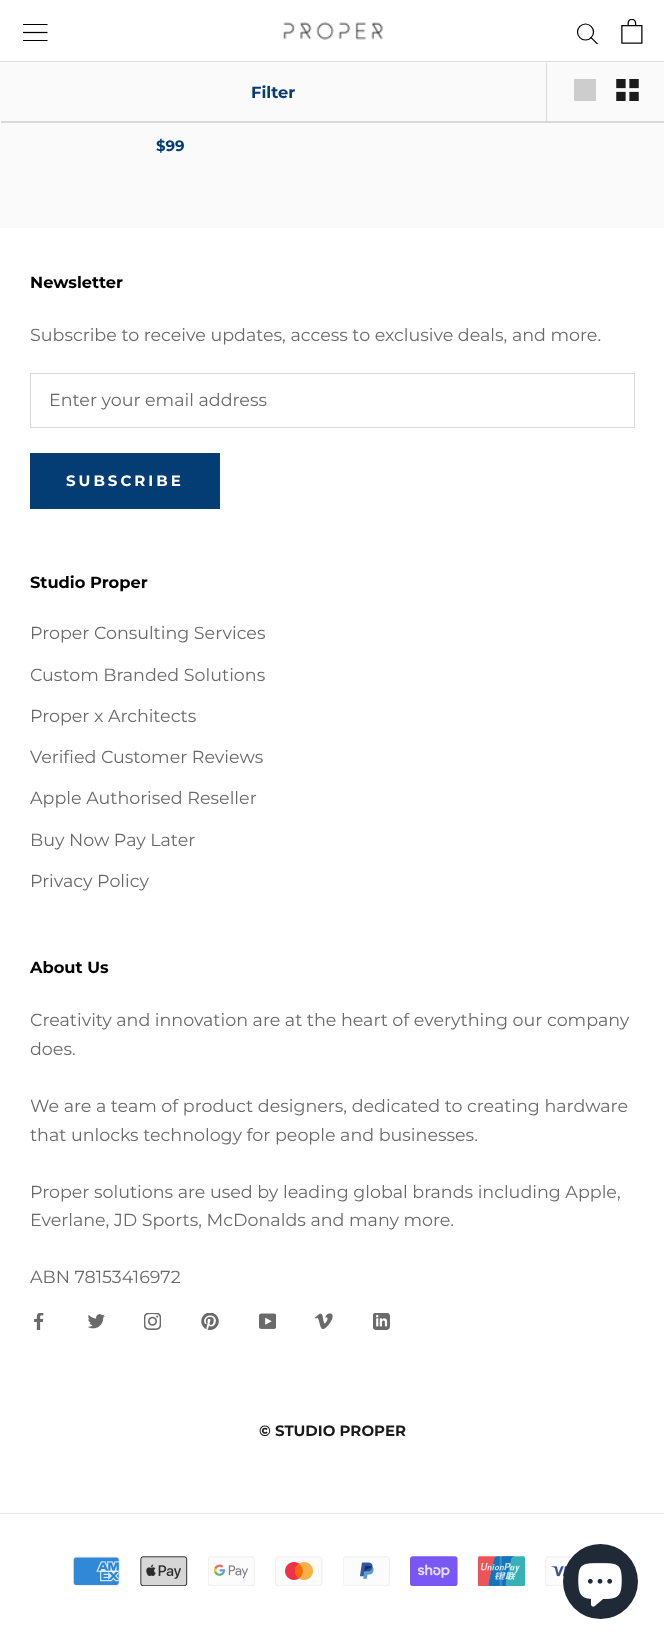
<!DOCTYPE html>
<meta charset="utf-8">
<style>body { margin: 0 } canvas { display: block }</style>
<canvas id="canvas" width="664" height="1644"></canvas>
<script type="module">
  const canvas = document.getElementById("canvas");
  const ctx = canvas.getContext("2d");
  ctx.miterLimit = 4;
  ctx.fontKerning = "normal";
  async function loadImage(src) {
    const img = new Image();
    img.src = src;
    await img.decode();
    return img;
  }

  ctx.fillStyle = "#fafafa";
  ctx.fillRect(0, 0, 664, 1644);
  ctx.fillStyle = "#ffffff";
  ctx.fillRect(0, 0, 664, 63);
  ctx.fillStyle = "#d9d9d9";
  ctx.fillRect(0, 61, 664, 1);
  ctx.drawImage(await loadImage("img1.png"), 23, 24, 25, 17);
  ctx.drawImage(await loadImage("img2.png"), 283, 22, 100, 18);
  ctx.save();
  ctx.beginPath();
  ctx.rect(576, 23, 23, 21);
  ctx.clip();
  ctx.beginPath();
  ctx.moveTo(597.5, 44);
  ctx.lineTo(591, 37.5);
  ctx.strokeStyle = "#000000";
  ctx.lineWidth = 1.2;
  ctx.lineCap = "square";
  ctx.stroke();
  ctx.restore();
  ctx.beginPath();
  ctx.arc(585.5, 32, 8, 0, Math.PI * 2);
  ctx.strokeStyle = "#000000";
  ctx.lineWidth = 1.2;
  ctx.stroke();
  ctx.drawImage(await loadImage("img3.png"), 621, 19, 22, 25);
  ctx.beginPath();
  ctx.moveTo(1, 121);
  ctx.lineTo(1, 123);
  ctx.lineTo(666, 123);
  ctx.lineTo(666, 64);
  ctx.lineTo(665, 64);
  ctx.lineTo(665, 121);
  ctx.closePath();
  ctx.fill();
  ctx.font = "bold 16.25px Montserrat";
  ctx.fillStyle = "#043c74";
  ctx.fillText("Filter", 251, 98);
  ctx.fillStyle = "#d9d9d9";
  ctx.fillRect(546, 63, 1, 58);
  ctx.fillStyle = "#cecdcd";
  ctx.fillRect(574, 79, 22, 22);
  ctx.drawImage(await loadImage("img4.png"), 616, 79, 23, 22);
  ctx.font = "bold 15px Montserrat";
  ctx.fillStyle = "#043c74";
  ctx.fillText("$99", 156, 151);
  ctx.fillStyle = "#ffffff";
  ctx.fillRect(0, 228, 664, 1416);
  ctx.font = "bold 16.25px Montserrat";
  ctx.fillStyle = "#000000";
  ctx.fillText("Newsletter", 30, 288);
  ctx.font = "17.5px Montserrat";
  ctx.fillStyle = "#6a6a6a";
  ctx.fillText("Subscribe to receive updates, access to exclusive deals, and more.", 30, 341);
  ctx.strokeStyle = "#d9d9d9";
  ctx.lineWidth = 1;
  ctx.strokeRect(30.5, 373.5, 604, 54);
  ctx.fillText("Enter your email address", 49, 406);
  ctx.strokeStyle = "#043c74";
  ctx.strokeRect(30.5, 453.5, 189, 55);
  ctx.fillStyle = "#043c74";
  ctx.fillRect(31, 454, 188, 54);
  ctx.letterSpacing = "3px";
  ctx.font = "bold 15px Montserrat";
  ctx.fillStyle = "#ffffff";
  ctx.fillText("SUBSCRIBE", 66, 486);
  ctx.letterSpacing = "0px";
  ctx.font = "bold 16.25px Montserrat";
  ctx.fillStyle = "#000000";
  ctx.fillText("Studio Proper", 30, 588);
  ctx.font = "17.5px Montserrat";
  ctx.fillStyle = "#6a6a6a";
  ctx.fillText("Proper Consulting Services", 30, 639);
  ctx.fillText("Custom Branded Solutions", 30, 681);
  ctx.fillText("Proper x Architects", 30, 722);
  ctx.fillText("Verified Customer Reviews", 30, 763);
  ctx.fillText("Apple Authorised Reseller", 30, 804);
  ctx.fillText("Buy Now Pay Later", 30, 846);
  ctx.fillText("Privacy Policy", 30, 887);
  ctx.font = "bold 16.25px Montserrat";
  ctx.fillStyle = "#000000";
  ctx.fillText("About Us", 30, 973);
  ctx.font = "17.5px Montserrat";
  ctx.fillStyle = "#6a6a6a";
  ctx.fillText("Creativity and innovation are at the heart of everything our company", 30, 1026);
  ctx.fillText("does.", 30, 1055);
  ctx.fillText("We are a team of product designers, dedicated to creating hardware", 30, 1112);
  ctx.fillText("that unlocks technology for people and businesses.", 30, 1141);
  ctx.fillText("Proper solutions are used by leading global brands including Apple,", 30, 1198);
  ctx.fillText("Everlane, JD Sports, McDonalds and many more.", 30, 1226);
  ctx.fillText("ABN 78153416972", 30, 1283);
  ctx.drawImage(await loadImage("img5.png"), 34, 1313, 10, 17);
  ctx.drawImage(await loadImage("img6.png"), 88, 1314, 17, 15);
  ctx.drawImage(await loadImage("img7.png"), 144, 1313, 17, 17);
  ctx.drawImage(await loadImage("img8.png"), 201, 1313, 18, 17);
  ctx.drawImage(await loadImage("img9.png"), 259, 1313, 17, 16);
  ctx.drawImage(await loadImage("img10.png"), 315, 1313, 18, 16);
  ctx.drawImage(await loadImage("img11.png"), 373, 1313, 17, 17);
  ctx.font = "bold 15px Montserrat";
  ctx.fillStyle = "#1c1b1b";
  ctx.fillText("© STUDIO PROPER", 259, 1436);
  ctx.fillStyle = "#e9e9e9";
  ctx.fillRect(0, 1513, 664, 1);
  ctx.drawImage(await loadImage("img12.png"), 73, 1556, 47, 30);
  ctx.drawImage(await loadImage("img13.png"), 140, 1556, 48, 30);
  ctx.drawImage(await loadImage("img14.png"), 208, 1556, 47, 30);
  ctx.drawImage(await loadImage("img15.png"), 275, 1556, 48, 30);
  ctx.drawImage(await loadImage("img16.png"), 343, 1556, 47, 30);
  ctx.drawImage(await loadImage("img17.png"), 410, 1556, 48, 30);
  ctx.drawImage(await loadImage("img18.png"), 478, 1556, 47, 30);
  ctx.drawImage(await loadImage("img19.png"), 545, 1556, 28, 30);
  ctx.fillStyle = "#202a36";
  ctx.beginPath();
  ctx.arc(600.5, 1581.5, 37.5, 0, Math.PI * 2);
  ctx.fill();
  ctx.drawImage(await loadImage("img20.png"), 578, 1563, 44, 44);
</script>
